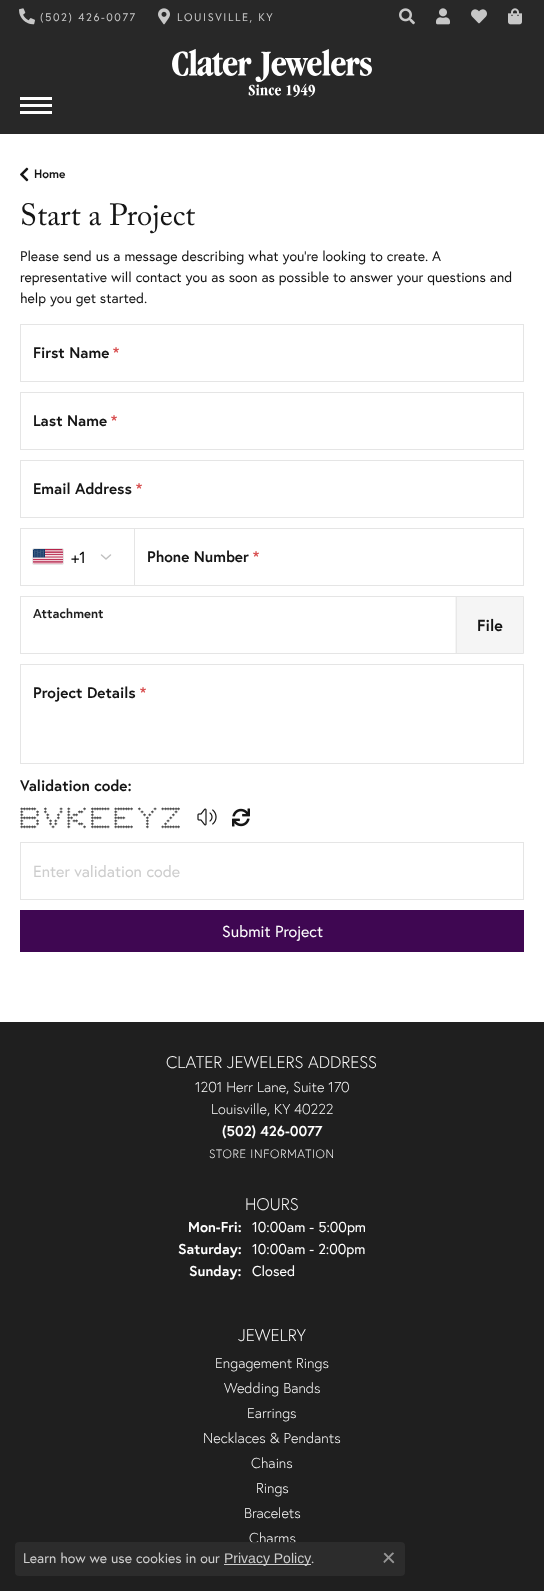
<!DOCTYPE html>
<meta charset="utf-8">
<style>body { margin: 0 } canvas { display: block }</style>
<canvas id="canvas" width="544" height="1591"></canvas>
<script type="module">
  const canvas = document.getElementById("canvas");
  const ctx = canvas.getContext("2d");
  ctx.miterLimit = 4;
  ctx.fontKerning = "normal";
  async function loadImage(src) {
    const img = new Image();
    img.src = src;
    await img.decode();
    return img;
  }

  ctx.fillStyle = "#282828";
  ctx.fillRect(0, 0, 544, 1591);
  ctx.drawImage(await loadImage("img1.png"), 19, 8, 16, 17);
  ctx.letterSpacing = "1.6px";
  ctx.font = "11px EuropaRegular";
  ctx.fillStyle = "#c7c7c7";
  ctx.fillText("(502) 426-0077", 40, 21);
  ctx.drawImage(await loadImage("img2.png"), 158, 8, 12, 17);
  ctx.fillText("LOUISVILLE, KY", 177, 21);
  ctx.drawImage(await loadImage("img3.png"), 399, 8, 16, 17);
  ctx.drawImage(await loadImage("img4.png"), 436, 8, 14, 17);
  ctx.drawImage(await loadImage("img5.png"), 471, 9, 16, 15);
  ctx.drawImage(await loadImage("img6.png"), 508, 8, 14, 17);
  ctx.drawImage(await loadImage("img7.png"), 172, 49, 200, 48);
  ctx.fillStyle = "#ffffff";
  ctx.fillRect(20, 97, 32, 3);
  ctx.fillRect(20, 104, 32, 3);
  ctx.fillRect(20, 111, 32, 3);
  ctx.fillRect(0, 134, 544, 888);
  ctx.drawImage(await loadImage("img8.png"), 20, 167, 9, 15);
  ctx.letterSpacing = "0px";
  ctx.font = "bold 12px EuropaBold";
  ctx.fillStyle = "#151515";
  ctx.fillText("Home", 34, 178);
  ctx.font = "30.5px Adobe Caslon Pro";
  ctx.fillText("Start a Project", 20, 225);
  ctx.font = "14px EuropaRegular";
  ctx.fillText("Please send us a message describing what you’re looking to create. A", 20, 261);
  ctx.fillText("representative will contact you as soon as possible to answer your questions and", 20, 282);
  ctx.fillText("help you get started.", 20, 303);
  ctx.strokeStyle = "#e5e5e5";
  ctx.strokeRect(20.5, 324.5, 503, 57);
  ctx.font = "bold 15.25px EuropaBold";
  ctx.fillText("First Name", 33, 358);
  ctx.fillStyle = "#d84e4f";
  ctx.fillText("*", 113, 358);
  ctx.strokeRect(20.5, 392.5, 503, 57);
  ctx.fillStyle = "#151515";
  ctx.fillText("Last Name", 33, 426);
  ctx.fillStyle = "#d84e4f";
  ctx.fillText("*", 111, 426);
  ctx.strokeRect(20.5, 460.5, 503, 57);
  ctx.fillStyle = "#151515";
  ctx.fillText("Email Address", 33, 494);
  ctx.fillStyle = "#d84e4f";
  ctx.fillText("*", 136, 494);
  ctx.strokeRect(20.5, 528.5, 114, 57);
  ctx.drawImage(await loadImage("img9.png"), 33, 549, 30, 15);
  ctx.beginPath();
  ctx.roundRect(32.5, 548.5, 31, 16, 1.5);
  ctx.strokeStyle = "#e6e6e6";
  ctx.stroke();
  ctx.font = "16px EuropaRegular";
  ctx.fillStyle = "#000000";
  ctx.fillText("+1", 71, 563);
  ctx.beginPath();
  ctx.moveTo(101.5, 555);
  ctx.lineTo(106, 559);
  ctx.lineTo(110.5, 555);
  ctx.strokeStyle = "#c0c0c0";
  ctx.lineWidth = 1.5;
  ctx.lineCap = "round";
  ctx.lineJoin = "round";
  ctx.stroke();
  ctx.strokeStyle = "#e5e5e5";
  ctx.lineWidth = 1;
  ctx.lineJoin = "miter";
  ctx.strokeRect(134.5, 528.5, 389, 57);
  ctx.font = "bold 15.25px EuropaBold";
  ctx.fillStyle = "#151515";
  ctx.fillText("Phone Number", 147, 562);
  ctx.fillStyle = "#d84e4f";
  ctx.fillText("*", 253, 562);
  ctx.strokeRect(20.5, 596.5, 436, 57);
  ctx.font = "bold 13px EuropaBold";
  ctx.fillStyle = "#1f1f1f";
  ctx.fillText("Attachment", 33, 618);
  ctx.fillStyle = "#f5f5f5";
  ctx.beginPath();
  ctx.rect(456.5, 596.5, 67, 57);
  ctx.fill();
  ctx.stroke();
  ctx.font = "bold 16px EuropaBold";
  ctx.fillStyle = "#151515";
  ctx.fillText("File", 477, 631);
  ctx.strokeRect(20.5, 664.5, 503, 99);
  ctx.font = "bold 15.25px EuropaBold";
  ctx.fillText("Project Details", 33, 698);
  ctx.fillStyle = "#d84e4f";
  ctx.fillText("*", 140, 698);
  ctx.fillStyle = "#151515";
  ctx.fillText("Validation code:", 20, 791);
  ctx.letterSpacing = "-1px";
  ctx.font = "bold 6px DejaVu Sans Mono";
  ctx.fillText("******   *     *  *     *  *******  *******  *     *  *******", 20, 812);
  ctx.fillText("*     *  *     *  *   **   *        *         *   *        *", 20, 815);
  ctx.fillText("*     *   *   *   * **     *        *          * *        *", 20, 818);
  ctx.fillText("******    *   *   **       ****     ****        *        *", 20, 821);
  ctx.fillText("*     *    * *    * **     *        *           *       *", 20, 824);
  ctx.fillText("*     *    * *    *   **   *        *           *      *", 20, 827);
  ctx.fillText("******      *     *     *  *******  *******     *     *******", 20, 830);
  ctx.drawImage(await loadImage("img10.png"), 197, 808, 20, 18);
  ctx.drawImage(await loadImage("img11.png"), 232, 808, 18, 19);
  ctx.strokeRect(20.5, 842.5, 503, 57);
  ctx.letterSpacing = "0px";
  ctx.font = "16px EuropaRegular";
  ctx.fillStyle = "#cdcdcd";
  ctx.fillText("Enter validation code", 33, 877);
  ctx.fillStyle = "#3f0752";
  ctx.fillRect(20, 910, 504, 42);
  ctx.fillStyle = "#fefefe";
  ctx.fillText("Submit Project", 222, 937);
  ctx.fillStyle = "#1f1f1f";
  ctx.fillRect(0, 1022, 544, 569);
  ctx.font = "300 16.75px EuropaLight";
  ctx.fillStyle = "#fefefe";
  ctx.fillText("CLATER JEWELERS ADDRESS", 166, 1068);
  ctx.font = "300 14.4px EuropaLight";
  ctx.fillText("1201 Herr Lane, Suite 170", 195, 1092);
  ctx.fillText("Louisville, KY 40222", 211, 1114);
  ctx.font = "bold 14.4px EuropaBold";
  ctx.fillText("(502) 426-0077", 222, 1136);
  ctx.letterSpacing = "0.6px";
  ctx.font = "300 12px EuropaLight";
  ctx.fillText("STORE INFORMATION", 209, 1158);
  ctx.letterSpacing = "0px";
  ctx.font = "300 16.75px EuropaLight";
  ctx.fillText("HOURS", 245, 1210);
  ctx.font = "bold 14.4px EuropaBold";
  ctx.fillText("Mon-Fri:", 188, 1232);
  ctx.font = "14.4px EuropaRegular";
  ctx.fillText("10:00am - 5:00pm", 252, 1232);
  ctx.font = "bold 14.4px EuropaBold";
  ctx.fillText("Saturday:", 178, 1254);
  ctx.font = "14.4px EuropaRegular";
  ctx.fillText("10:00am - 2:00pm", 252, 1254);
  ctx.font = "bold 14.4px EuropaBold";
  ctx.fillText("Sunday:", 189, 1276);
  ctx.font = "14.4px EuropaRegular";
  ctx.fillText("Closed", 252, 1276);
  ctx.font = "300 16.75px EuropaLight";
  ctx.fillText("JEWELRY", 238, 1341);
  ctx.font = "300 14.4px EuropaLight";
  ctx.fillText("Engagement Rings", 215, 1368);
  ctx.fillText("Wedding Bands", 224, 1393);
  ctx.fillText("Earrings", 247, 1418);
  ctx.fillText("Necklaces & Pendants", 203, 1443);
  ctx.fillText("Chains", 251, 1468);
  ctx.fillText("Rings", 256, 1493);
  ctx.fillText("Bracelets", 244, 1518);
  ctx.fillText("Charms", 249, 1543);
  ctx.fillStyle = "rgba(46, 46, 46, 0.9)";
  ctx.beginPath();
  ctx.roundRect(15, 1542, 390, 34, 4);
  ctx.fill();
  ctx.font = "14px EuropaRegular";
  ctx.fillStyle = "#cdcdcd";
  ctx.fillText("Learn how we use cookies in our", 23, 1563);
  ctx.fillStyle = "#cccccc";
  ctx.fillRect(224, 1564, 87, 1);
  ctx.font = "14px Liberation Sans";
  ctx.fillStyle = "#cdcdcd";
  ctx.fillText("Privacy Policy", 224, 1563);
  ctx.font = "14px EuropaRegular";
  ctx.fillText(".", 311, 1563);
  ctx.drawImage(await loadImage("img12.png"), 383, 1552, 12, 12);
</script>
